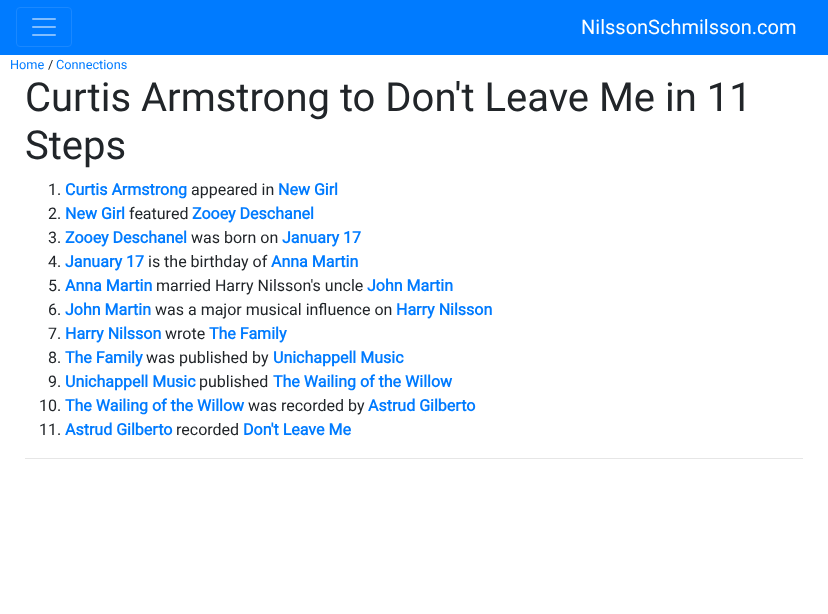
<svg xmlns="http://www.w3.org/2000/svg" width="828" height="614">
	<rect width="100%" height="100%" fill="#FFFFFF" />
	<rect x="0" y="0" width="828" height="55" fill="#007BFF" />
	<rect x="16.5" y="7.5" width="55" height="39" rx="3.5" fill="none" stroke="#1A88FF" />
	<image x="32" y="18" width="24" height="18" href="assets/img1.png" />
	<text x="581" y="34" font-family="Roboto" font-size="20" fill="#FFFFFF">NilssonSchmilsson.com</text>
	<text x="10" y="69" font-family="Roboto" font-size="12.75" fill="#007BFF">Home</text>
	<text x="48" y="69" font-family="Roboto" font-size="12.75" fill="#212529">/</text>
	<text x="56" y="69" font-family="Roboto" font-size="12.75" fill="#007BFF">Connections</text>
	<g font-family="Roboto" font-size="40" fill="#212529">
		<text x="25" y="111">Curtis Armstrong to Don't Leave Me in 11</text>
		<text x="25" y="159">Steps</text>
	</g>
	<text x="48" y="195" font-family="Roboto" font-size="16" fill="#212529">1.</text>
	<text x="65" y="195" font-family="Roboto" font-size="16" font-weight="700" fill="#007BFF">Curtis Armstrong</text>
	<text x="191" y="195" font-family="Roboto" font-size="16" fill="#212529">appeared in</text>
	<text x="278" y="195" font-family="Roboto" font-size="16" font-weight="700" fill="#007BFF">New Girl</text>
	<text x="48" y="219" font-family="Roboto" font-size="16" fill="#212529">2.</text>
	<text x="65" y="219" font-family="Roboto" font-size="16" font-weight="700" fill="#007BFF">New Girl</text>
	<text x="129" y="219" font-family="Roboto" font-size="16" fill="#212529">featured</text>
	<text x="192" y="219" font-family="Roboto" font-size="16" font-weight="700" fill="#007BFF">Zooey Deschanel</text>
	<text x="48" y="243" font-family="Roboto" font-size="16" fill="#212529">3.</text>
	<text x="65" y="243" font-family="Roboto" font-size="16" font-weight="700" fill="#007BFF">Zooey Deschanel</text>
	<text x="191" y="243" font-family="Roboto" font-size="16" fill="#212529">was born on</text>
	<text x="282" y="243" font-family="Roboto" font-size="16" font-weight="700" fill="#007BFF">January 17</text>
	<text x="48" y="267" font-family="Roboto" font-size="16" fill="#212529">4.</text>
	<text x="65" y="267" font-family="Roboto" font-size="16" font-weight="700" fill="#007BFF">January 17</text>
	<text x="148" y="267" font-family="Roboto" font-size="16" fill="#212529">is the birthday of</text>
	<text x="271" y="267" font-family="Roboto" font-size="16" font-weight="700" fill="#007BFF">Anna Martin</text>
	<text x="48" y="291" font-family="Roboto" font-size="16" fill="#212529">5.</text>
	<text x="65" y="291" font-family="Roboto" font-size="16" font-weight="700" fill="#007BFF">Anna Martin</text>
	<text x="156" y="291" font-family="Roboto" font-size="16" fill="#212529">married Harry Nilsson's uncle</text>
	<text x="367" y="291" font-family="Roboto" font-size="16" font-weight="700" fill="#007BFF">John Martin</text>
	<text x="48" y="315" font-family="Roboto" font-size="16" fill="#212529">6.</text>
	<text x="65" y="315" font-family="Roboto" font-size="16" font-weight="700" fill="#007BFF">John Martin</text>
	<text x="155" y="315" font-family="Roboto" font-size="16" fill="#212529">was a major musical influence on</text>
	<text x="396" y="315" font-family="Roboto" font-size="16" font-weight="700" fill="#007BFF">Harry Nilsson</text>
	<text x="48" y="339" font-family="Roboto" font-size="16" fill="#212529">7.</text>
	<text x="65" y="339" font-family="Roboto" font-size="16" font-weight="700" fill="#007BFF">Harry Nilsson</text>
	<text x="165" y="339" font-family="Roboto" font-size="16" fill="#212529">wrote</text>
	<text x="209" y="339" font-family="Roboto" font-size="16" font-weight="700" fill="#007BFF">The Family</text>
	<text x="48" y="363" font-family="Roboto" font-size="16" fill="#212529">8.</text>
	<text x="65" y="363" font-family="Roboto" font-size="16" font-weight="700" fill="#007BFF">The Family</text>
	<text x="146" y="363" font-family="Roboto" font-size="16" fill="#212529">was published by</text>
	<text x="273" y="363" font-family="Roboto" font-size="16" font-weight="700" fill="#007BFF">Unichappell Music</text>
	<text x="48" y="387" font-family="Roboto" font-size="16" fill="#212529">9.</text>
	<text x="65" y="387" font-family="Roboto" font-size="16" font-weight="700" fill="#007BFF">Unichappell Music</text>
	<text x="199" y="387" font-family="Roboto" font-size="16" fill="#212529">published</text>
	<text x="273" y="387" font-family="Roboto" font-size="16" font-weight="700" fill="#007BFF">The Wailing of the Willow</text>
	<text x="39" y="411" font-family="Roboto" font-size="16" fill="#212529">10.</text>
	<text x="65" y="411" font-family="Roboto" font-size="16" font-weight="700" fill="#007BFF">The Wailing of the Willow</text>
	<text x="248" y="411" font-family="Roboto" font-size="16" fill="#212529">was recorded by</text>
	<text x="368" y="411" font-family="Roboto" font-size="16" font-weight="700" fill="#007BFF">Astrud Gilberto</text>
	<text x="39" y="435" font-family="Roboto" font-size="16" fill="#212529">11.</text>
	<text x="65" y="435" font-family="Roboto" font-size="16" font-weight="700" fill="#007BFF">Astrud Gilberto</text>
	<text x="176" y="435" font-family="Roboto" font-size="16" fill="#212529">recorded</text>
	<text x="243" y="435" font-family="Roboto" font-size="16" font-weight="700" fill="#007BFF">Don't Leave Me</text>
	<rect x="25" y="458" width="778" height="1" fill="#E6E6E6" />
</svg>
